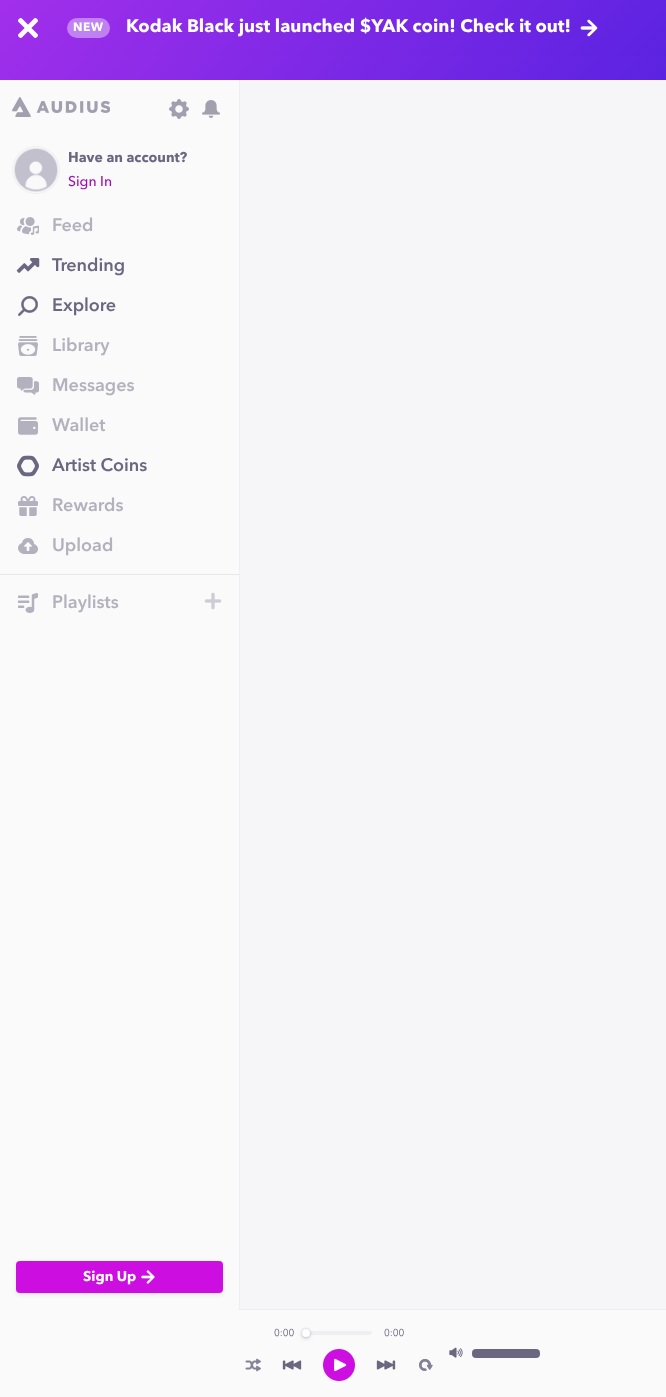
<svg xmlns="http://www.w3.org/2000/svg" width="666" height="1397">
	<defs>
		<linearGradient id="g1" gradientUnits="userSpaceOnUse" x1="514" y1="209" x2="152" y2="-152"><stop offset="0" stop-color="#5B23E1" /><stop offset="1" stop-color="#A22FEB" /></linearGradient>
		<linearGradient id="g2" gradientUnits="userSpaceOnUse" x1="520" y1="226" x2="146" y2="-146"><stop offset="0" stop-color="#5B23E1" /><stop offset="1" stop-color="#A22FEB" /></linearGradient>
	</defs>
	<rect width="100%" height="100%" fill="#F6F5F7" />
	<rect x="0" y="0" width="666" height="56" fill="url(#g1)" />
	<image x="18" y="18" width="20" height="20" href="assets/img1.png" />
	<rect x="67" y="18" width="43" height="20" rx="10" fill="#FFFFFF" fill-opacity="0.4" />
	<text x="73" y="31" font-family="Avenir Next" font-size="12" font-weight="700" letter-spacing="0.5" fill="#FFFFFF">NEW</text>
	<text x="126" y="32" font-family="Avenir Next" font-size="18" font-weight="700" fill="#FFFFFF">Kodak Black just launched $YAK coin! Check it out!</text>
	<image x="580" y="19" width="18" height="18" href="assets/img2.png" />
	<rect x="0" y="56" width="666" height="24" fill="url(#g2)" />
	<rect x="0" y="80" width="239" height="1229" fill="#FAFAFA" />
	<rect x="239" y="80" width="1" height="1229" fill="#EFEFF1" />
	<image x="12" y="97" width="98" height="20" href="assets/img3.png" />
	<image x="169" y="99" width="20" height="20" href="assets/img4.png" />
	<image x="202" y="100" width="18" height="18" href="assets/img5.png" />
	<circle cx="36" cy="170" r="23.5" fill="none" stroke="#EFEFF1" />
	<circle cx="36" cy="170" r="23" fill="#F7F7F8" />
	<image x="14" y="148" width="44" height="44" href="assets/img6.png" />
	<text x="68" y="162" font-family="Avenir Next" font-size="14" font-weight="700" fill="#6C6780">Have an account?</text>
	<text x="68" y="186" font-family="Avenir Next" font-size="14" font-weight="500" fill="#A30CB3">Sign In</text>
	<image x="17" y="217" width="22" height="18" href="assets/img7.png" />
	<text x="52" y="231" font-family="Avenir Next" font-size="18" font-weight="600" fill="#B3B1BD">Feed</text>
	<image x="16" y="258" width="24" height="15" href="assets/img8.png" />
	<text x="52" y="271" font-family="Avenir Next" font-size="18" font-weight="600" fill="#6C6780">Trending</text>
	<image x="18" y="296" width="20" height="20" href="assets/img9.png" />
	<text x="52" y="311" font-family="Avenir Next" font-size="18" font-weight="600" fill="#6C6780">Explore</text>
	<image x="18" y="336" width="20" height="20" href="assets/img10.png" />
	<text x="52" y="351" font-family="Avenir Next" font-size="18" font-weight="600" fill="#B3B1BD">Library</text>
	<image x="17" y="377" width="22" height="18" href="assets/img11.png" />
	<text x="52" y="391" font-family="Avenir Next" font-size="18" font-weight="600" fill="#B3B1BD">Messages</text>
	<image x="18" y="417" width="20" height="18" href="assets/img12.png" />
	<text x="52" y="431" font-family="Avenir Next" font-size="18" font-weight="600" fill="#B3B1BD">Wallet</text>
	<image x="17" y="455" width="22" height="22" href="assets/img13.png" />
	<text x="52" y="471" font-family="Avenir Next" font-size="18" font-weight="600" fill="#6C6780">Artist Coins</text>
	<image x="18" y="496" width="20" height="20" href="assets/img14.png" />
	<text x="52" y="511" font-family="Avenir Next" font-size="18" font-weight="600" fill="#B3B1BD">Rewards</text>
	<image x="18" y="538" width="20" height="16" href="assets/img15.png" />
	<text x="52" y="551" font-family="Avenir Next" font-size="18" font-weight="600" fill="#B3B1BD">Upload</text>
	<rect x="0" y="574" width="239" height="1" fill="#E7E7EA" />
	<image x="18" y="593" width="20" height="20" href="assets/img16.png" />
	<text x="52" y="608" font-family="Avenir Next" font-size="18" font-weight="600" fill="#B3B1BD">Playlists</text>
	<image x="204" y="592" width="18" height="18" href="assets/img17.png" />
	<rect x="16" y="1263" width="207" height="32" rx="4" fill="#000000" fill-opacity="0.08" filter="blur(2px)" />
	<rect x="16" y="1261" width="207" height="32" rx="4" fill="#CC0FE0" />
	<text x="83" y="1281" font-family="Avenir Next" font-size="14" font-weight="700" fill="#FFFFFF">Sign Up</text>
	<image x="141" y="1270" width="14" height="14" href="assets/img18.png" />
	<rect x="0" y="1309" width="666" height="88" fill="#FAFAFA" />
	<rect x="239" y="1309" width="427" height="1" fill="#EDECEF" />
	<text x="274" y="1336" font-family="Avenir Next" font-size="10" fill="#6C6780">0:00</text>
	<rect x="306" y="1331" width="66" height="4" rx="2" fill="#EFEFF1" />
	<rect x="303" y="1332" width="6" height="6" rx="3" fill="#858199" fill-opacity="0.5" filter="blur(2.5px)" />
	<rect x="302" y="1329" width="8" height="8" rx="4" fill="#858199" fill-opacity="0.5" filter="blur(1px)" />
	<circle cx="306" cy="1333" r="4" fill="#FFFFFF" />
	<text x="384" y="1336" font-family="Avenir Next" font-size="10" fill="#6C6780">0:00</text>
	<image x="245" y="1358" width="16" height="14" href="assets/img19.png" />
	<image x="282" y="1360" width="20" height="10" href="assets/img20.png" />
	<image x="323" y="1349" width="32" height="32" href="assets/img21.png" />
	<image x="376" y="1360" width="20" height="10" href="assets/img22.png" />
	<image x="419" y="1359" width="14" height="12" href="assets/img23.png" />
	<image x="449" y="1347" width="14" height="11" href="assets/img24.png" />
	<rect x="472" y="1349" width="68" height="9" rx="4" fill="#6C6780" />
</svg>
